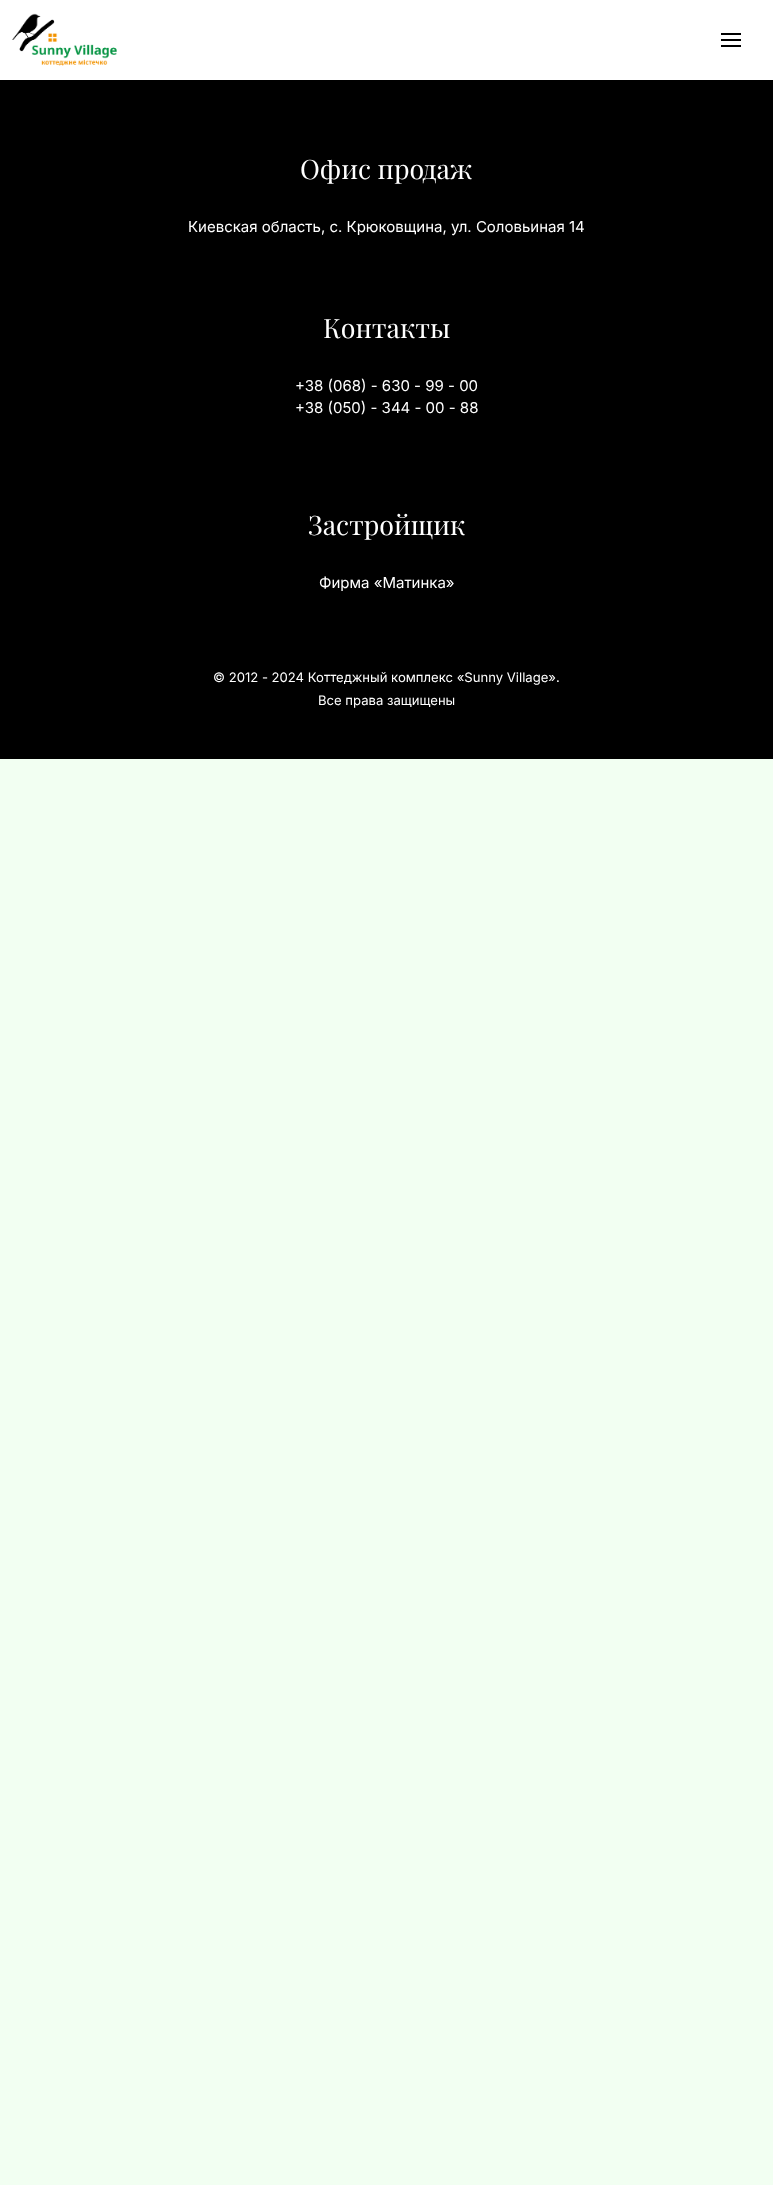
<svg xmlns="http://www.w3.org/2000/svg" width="773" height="2185">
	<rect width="100%" height="100%" fill="#F2FFF2" />
	<rect x="0" y="0" width="773" height="80" fill="#FFFFFF" />
	<image x="12" y="13" width="105" height="53" href="assets/img1.png" />
	<rect x="721" y="39" width="20" height="2" fill="#000000" />
	<rect x="721" y="33" width="20" height="2" fill="#000000" />
	<rect x="721" y="45" width="20" height="2" fill="#000000" />
	<rect x="0" y="80" width="773" height="679" fill="#000000" />
	<text x="300" y="179" font-family="Playfair Display" font-size="26.75" fill="#FFFFFF">Офис продаж</text>
	<text x="188" y="232" font-family="Inter" font-size="15" fill="#FFFFFF">Киевская область, с. Крюковщина, ул. Соловьиная 14</text>
	<text x="323" y="338" font-family="Playfair Display" font-size="26.75" fill="#FFFFFF">Контакты</text>
	<g font-family="Inter" font-size="15" fill="#FFFFFF">
		<text x="295" y="391">+38 (068) - 630 - 99 - 00</text>
		<text x="295" y="413">+38 (050) - 344 - 00 - 88</text>
	</g>
	<text x="308" y="535" font-family="Playfair Display" font-size="26.75" fill="#FFFFFF">Застройщик</text>
	<text x="319" y="588" font-family="Inter" font-size="15" fill="#FFFFFF">Фирма «Матинка»</text>
	<g font-family="Inter" font-size="13.1" fill="#FFFFFF">
		<text x="213" y="682">© 2012 - 2024 Коттеджный комплекс «Sunny Village».</text>
		<text x="318" y="705">Все права защищены</text>
	</g>
</svg>
